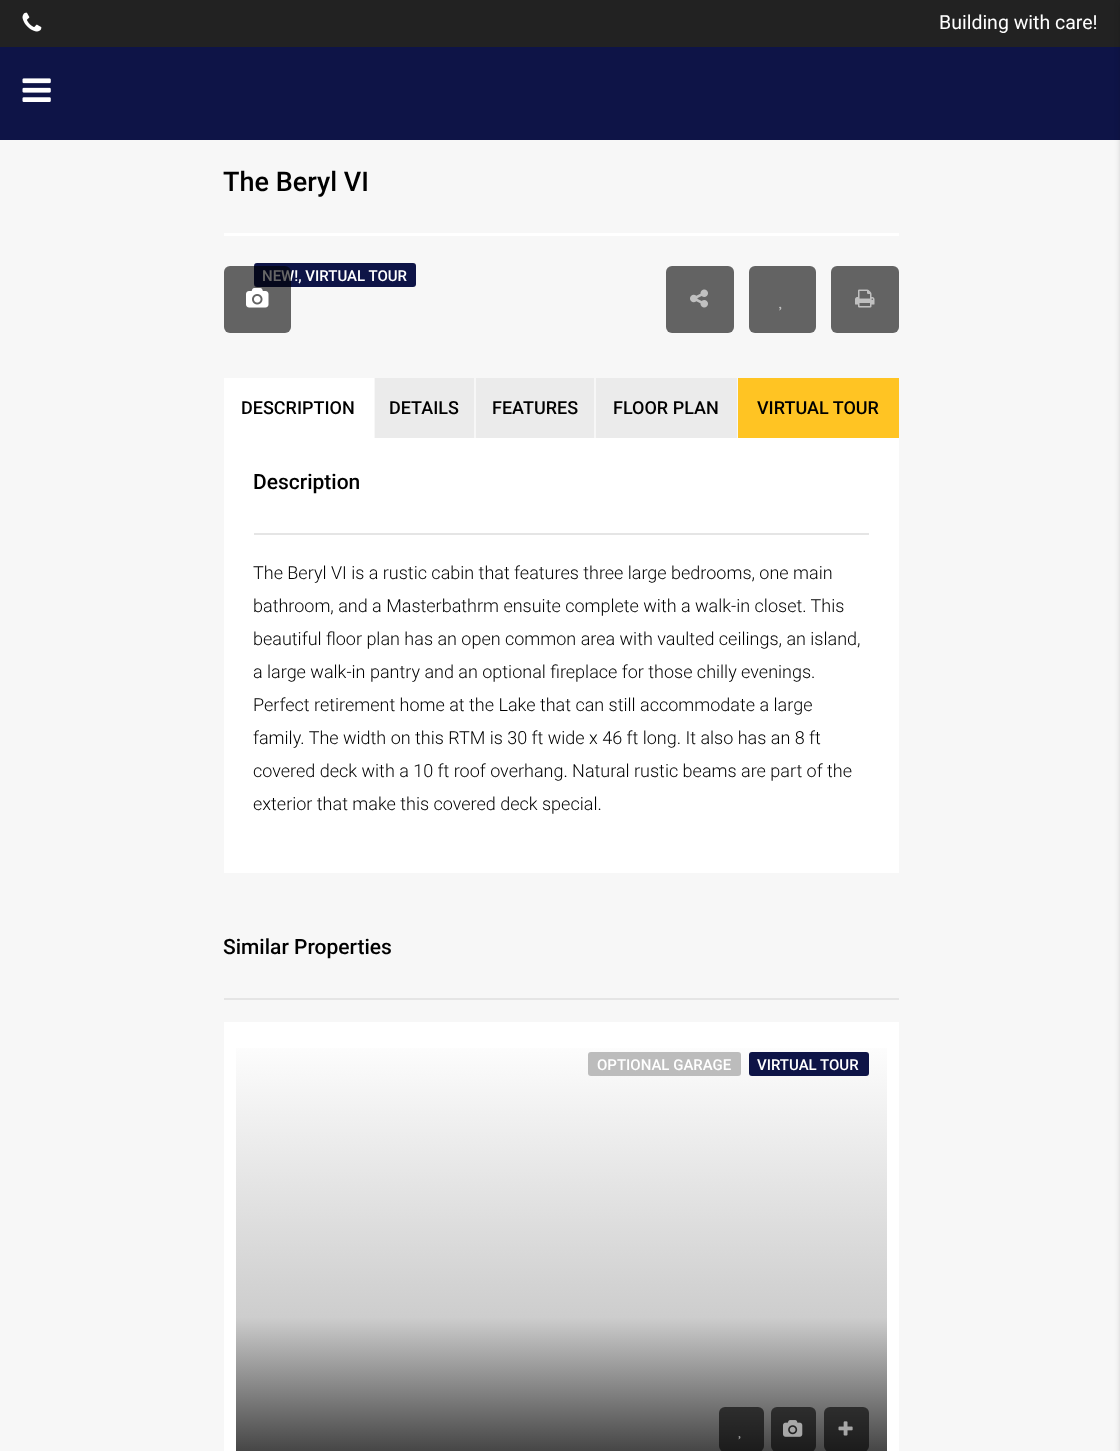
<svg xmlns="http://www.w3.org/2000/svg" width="1120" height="1451">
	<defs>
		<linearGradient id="g1" gradientUnits="userSpaceOnUse" x1="561" y1="1034" x2="561" y2="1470"><stop offset="0" stop-color="#FFFFFF" /><stop offset="0.65" stop-color="#CDCDCD" /><stop offset="1" stop-color="#333333" /></linearGradient>
	</defs>
	<rect width="100%" height="100%" fill="#F7F7F7" />
	<rect x="0" y="0" width="1120" height="47" fill="#222222" />
	<image x="22" y="12" width="20" height="20" href="assets/img1.png" />
	<text x="939" y="29" font-family="Roboto" font-size="19.5" fill="#FFFFFF">Building with care!</text>
	<rect x="0" y="47" width="1120" height="93" fill="#0E1447" />
	<image x="22" y="78" width="29" height="24" href="assets/img2.png" />
	<text x="223" y="191" font-family="Roboto" font-size="27" font-weight="500" fill="#000000">The Beryl VI</text>
	<rect x="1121" y="3" width="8" height="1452" fill="#000000" fill-opacity="0.2" filter="blur(3px)" />
	<rect x="254" y="263" width="162" height="24" rx="3" fill="#0E1447" />
	<text x="262" y="281" font-family="Roboto" font-size="15" font-weight="500" fill="#FFFFFF">NEW!, VIRTUAL TOUR</text>
	<rect x="224" y="266" width="67" height="67" rx="6" fill="#000000" fill-opacity="0.6" />
	<image x="246" y="288" width="23" height="20" href="assets/img3.png" />
	<rect x="666" y="266" width="68" height="67" rx="6" fill="#636363" />
	<image x="690" y="289" width="18" height="19" href="assets/img4.png" />
	<rect x="749" y="266" width="67" height="67" rx="6" fill="#636363" />
	<image x="779" y="306" width="3" height="5" href="assets/img5.png" />
	<rect x="831" y="266" width="68" height="67" rx="6" fill="#636363" />
	<image x="855" y="289" width="20" height="19" href="assets/img6.png" />
	<rect x="224" y="233" width="675" height="3" fill="#FFFFFF" />
	<rect x="224" y="378" width="150" height="60" fill="#FFFFFF" />
	<text x="241" y="414" font-family="Roboto" font-size="18" font-weight="500" fill="#000000">DESCRIPTION</text>
	<rect x="375" y="378" width="99" height="60" fill="#EBEBEB" />
	<text x="389" y="414" font-family="Roboto" font-size="18" font-weight="500" fill="#000000">DETAILS</text>
	<rect x="476" y="378" width="118" height="60" fill="#EBEBEB" />
	<text x="492" y="414" font-family="Roboto" font-size="18" font-weight="500" fill="#000000">FEATURES</text>
	<rect x="596" y="378" width="141" height="60" fill="#EBEBEB" />
	<text x="613" y="414" font-family="Roboto" font-size="18" font-weight="500" fill="#000000">FLOOR PLAN</text>
	<rect x="738" y="378" width="161" height="60" fill="#FFC423" />
	<text x="757" y="414" font-family="Roboto" font-size="18" font-weight="500" fill="#000000">VIRTUAL TOUR</text>
	<rect x="224" y="438" width="675" height="435" fill="#FFFFFF" />
	<rect x="254" y="533" width="615" height="2" fill="#E5E5E5" />
	<text x="253" y="489" font-family="Roboto" font-size="21" font-weight="500" fill="#000000">Description</text>
	<g font-family="Roboto" font-size="18" font-weight="300" fill="#000000">
		<text x="253" y="579">The Beryl VI is a rustic cabin that features three large bedrooms, one main</text>
		<text x="253" y="612">bathroom, and a Masterbathrm ensuite complete with a walk-in closet. This</text>
		<text x="253" y="645">beautiful floor plan has an open common area with vaulted ceilings, an island,</text>
		<text x="253" y="678">a large walk-in pantry and an optional fireplace for those chilly evenings.</text>
		<text x="253" y="711">Perfect retirement home at the Lake that can still accommodate a large</text>
		<text x="253" y="744">family. The width on this RTM is 30 ft wide x 46 ft long. It also has an 8 ft</text>
		<text x="253" y="777">covered deck with a 10 ft roof overhang. Natural rustic beams are part of the</text>
		<text x="253" y="810">exterior that make this covered deck special.</text>
	</g>
	<rect x="224" y="998" width="675" height="2" fill="#E5E5E5" />
	<text x="223" y="954" font-family="Roboto" font-size="21" font-weight="500" fill="#000000">Similar Properties</text>
	<rect x="224" y="1022" width="675" height="429" fill="#FFFFFF" />
	<rect x="236" y="1048" width="651" height="403" fill="url(#g1)" />
	<rect x="588" y="1052" width="153" height="24" rx="3" fill="#BCBCBC" />
	<text x="597" y="1070" font-family="Roboto" font-size="15" font-weight="500" fill="#FFFFFF">OPTIONAL GARAGE</text>
	<rect x="749" y="1052" width="120" height="24" rx="3" fill="#0E1447" />
	<text x="757" y="1070" font-family="Roboto" font-size="15" font-weight="500" fill="#FFFFFF">VIRTUAL TOUR</text>
	<rect x="719" y="1407" width="45" height="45" rx="6" fill="#000000" fill-opacity="0.6" />
	<image x="738" y="1436" width="3" height="4" href="assets/img7.png" />
	<rect x="771" y="1407" width="45" height="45" rx="6" fill="#000000" fill-opacity="0.6" />
	<image x="783" y="1420" width="20" height="17" href="assets/img8.png" />
	<rect x="824" y="1407" width="45" height="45" rx="6" fill="#000000" fill-opacity="0.6" />
	<image x="838" y="1421" width="15" height="15" href="assets/img9.png" />
</svg>
